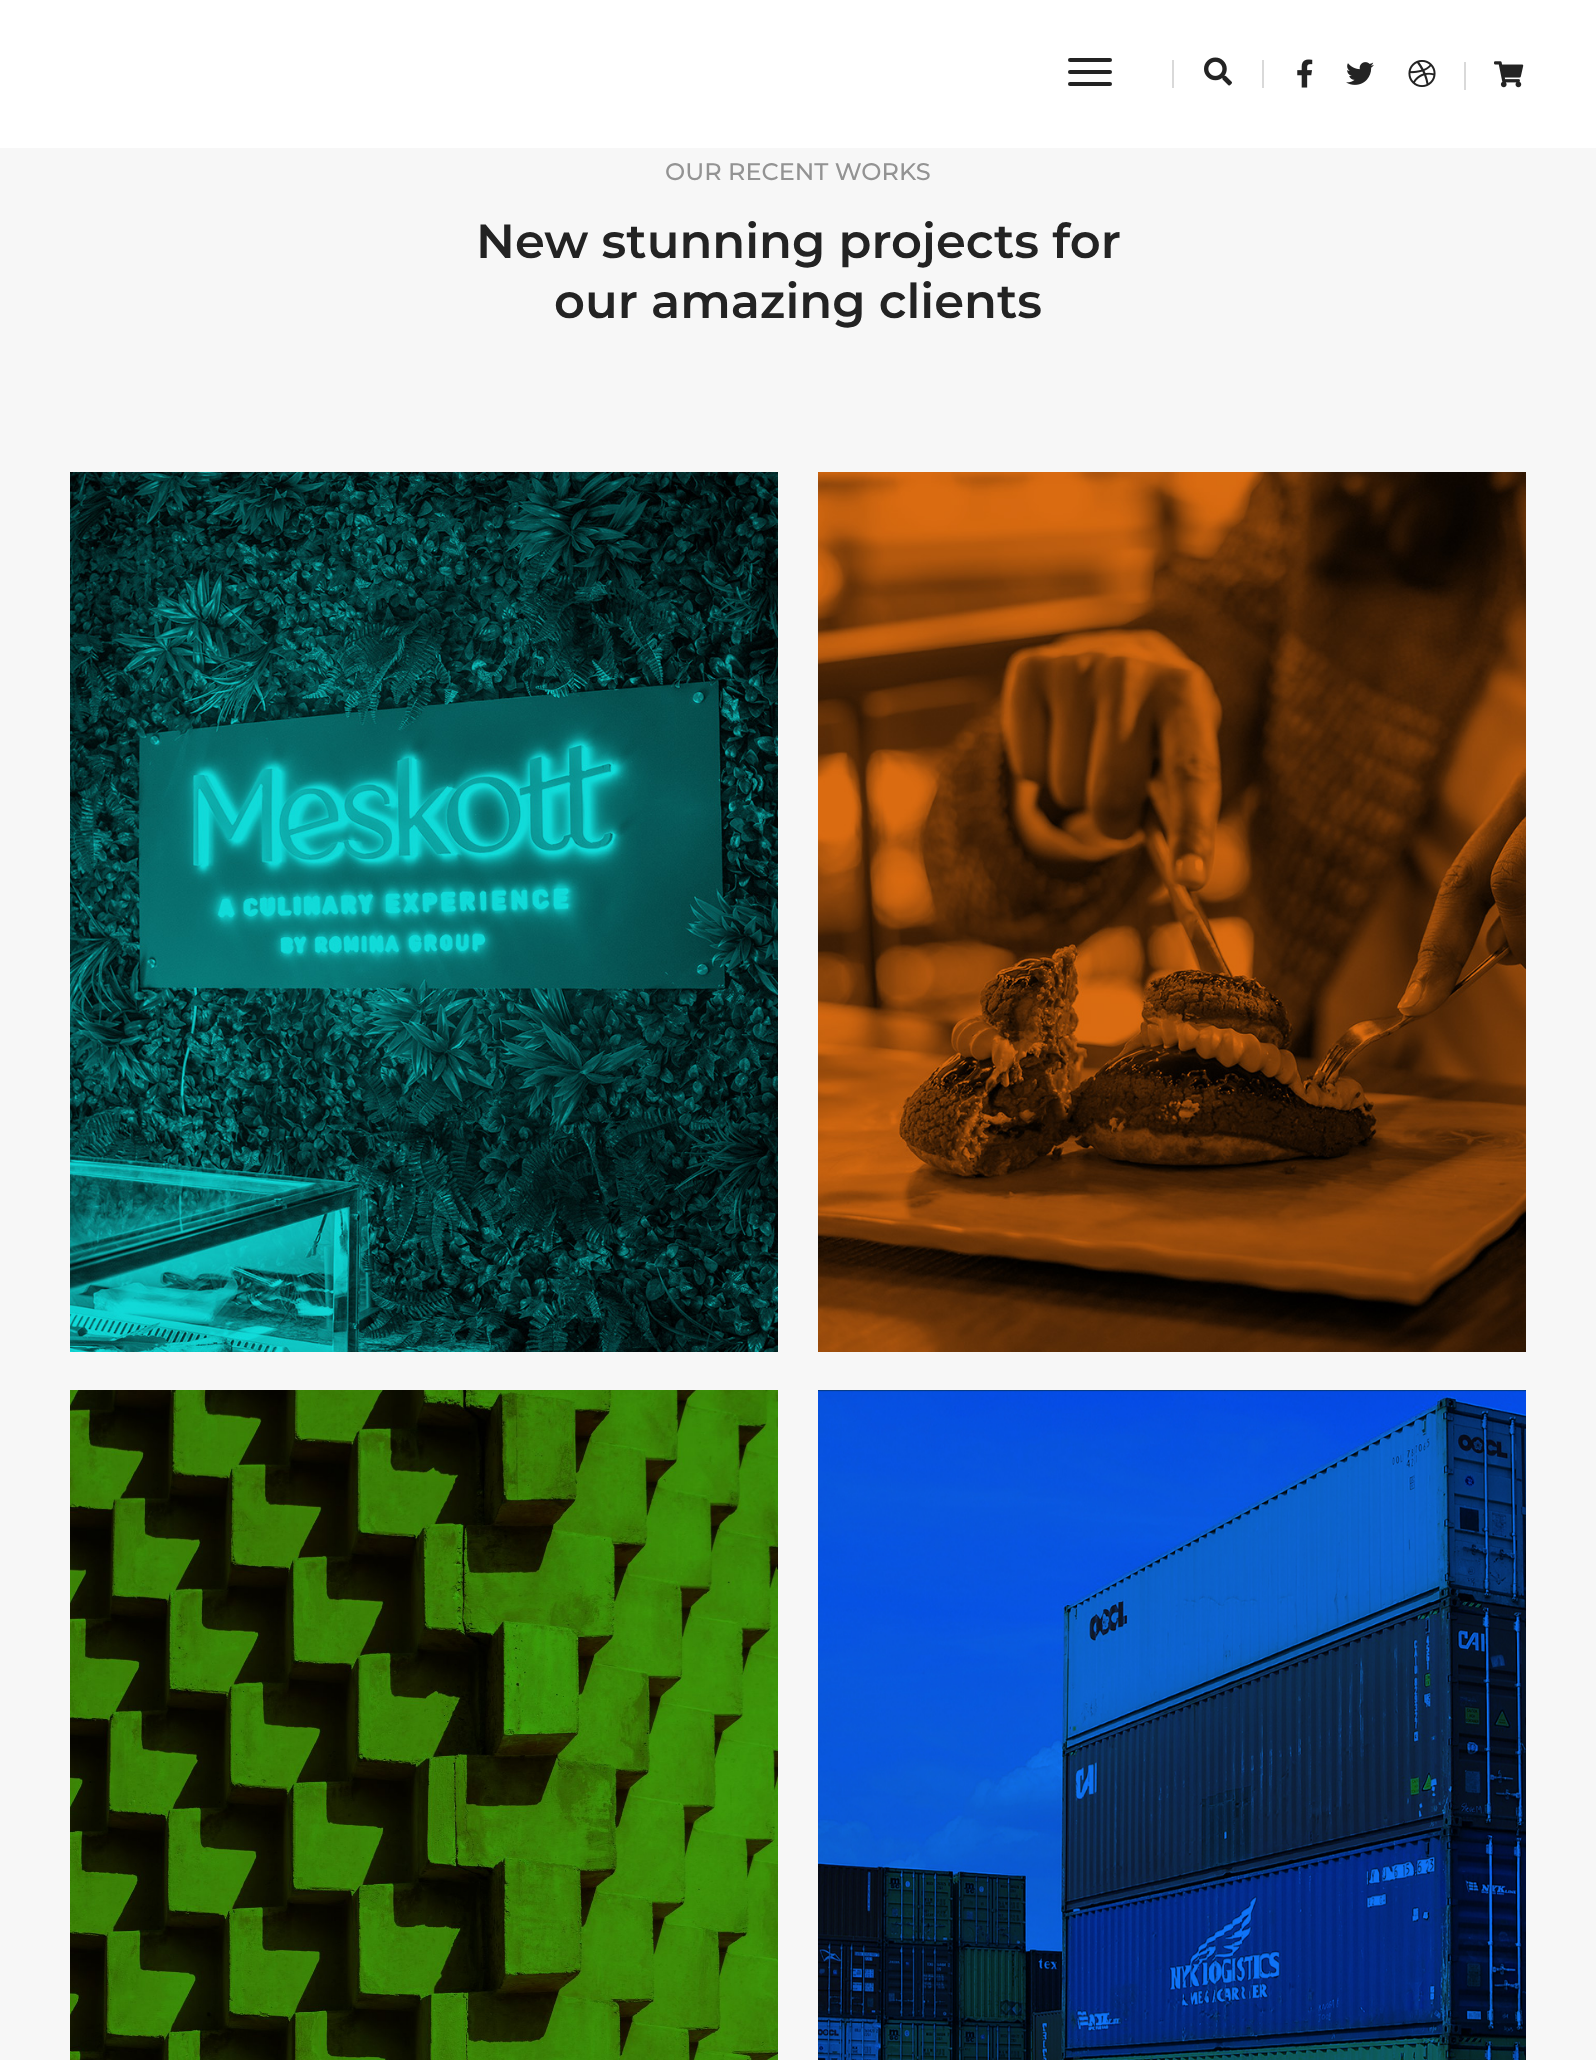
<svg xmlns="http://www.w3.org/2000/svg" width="1596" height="2060">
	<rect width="100%" height="100%" fill="#F7F7F7" />
	<rect x="0" y="0" width="1596" height="148" fill="#FFFFFF" />
	<rect x="1068" y="58" width="44" height="4" rx="2" fill="#232323" />
	<rect x="1068" y="70" width="44" height="4" rx="2" fill="#232323" />
	<rect x="1068" y="82" width="44" height="4" rx="2" fill="#232323" />
	<rect x="1172" y="60" width="2" height="28" fill="#D9D9D9" />
	<image x="1204" y="57" width="28" height="29" href="assets/img1.png" />
	<rect x="1262" y="60" width="2" height="28" fill="#D9D9D9" />
	<image x="1297" y="59" width="16" height="29" href="assets/img2.png" />
	<image x="1346" y="62" width="28" height="23" href="assets/img3.png" />
	<image x="1408" y="60" width="28" height="27" href="assets/img4.png" />
	<rect x="1464" y="62" width="2" height="28" fill="#D9D9D9" />
	<image x="1494" y="61" width="30" height="27" href="assets/img5.png" />
	<text x="665" y="180" font-family="Montserrat" font-size="24" font-weight="500" fill="#939393">OUR RECENT WORKS</text>
	<g font-family="Montserrat" font-size="48" font-weight="600" fill="#232323">
		<text x="476" y="258">New stunning projects for</text>
		<text x="554" y="318">our amazing clients</text>
	</g>
	<image x="70" y="472" width="708" height="880" href="assets/img6.png" />
	<image x="818" y="472" width="708" height="880" href="assets/img7.png" />
	<image x="70" y="1390" width="708" height="670" href="assets/img8.png" />
	<image x="818" y="1390" width="708" height="670" href="assets/img9.png" />
</svg>
